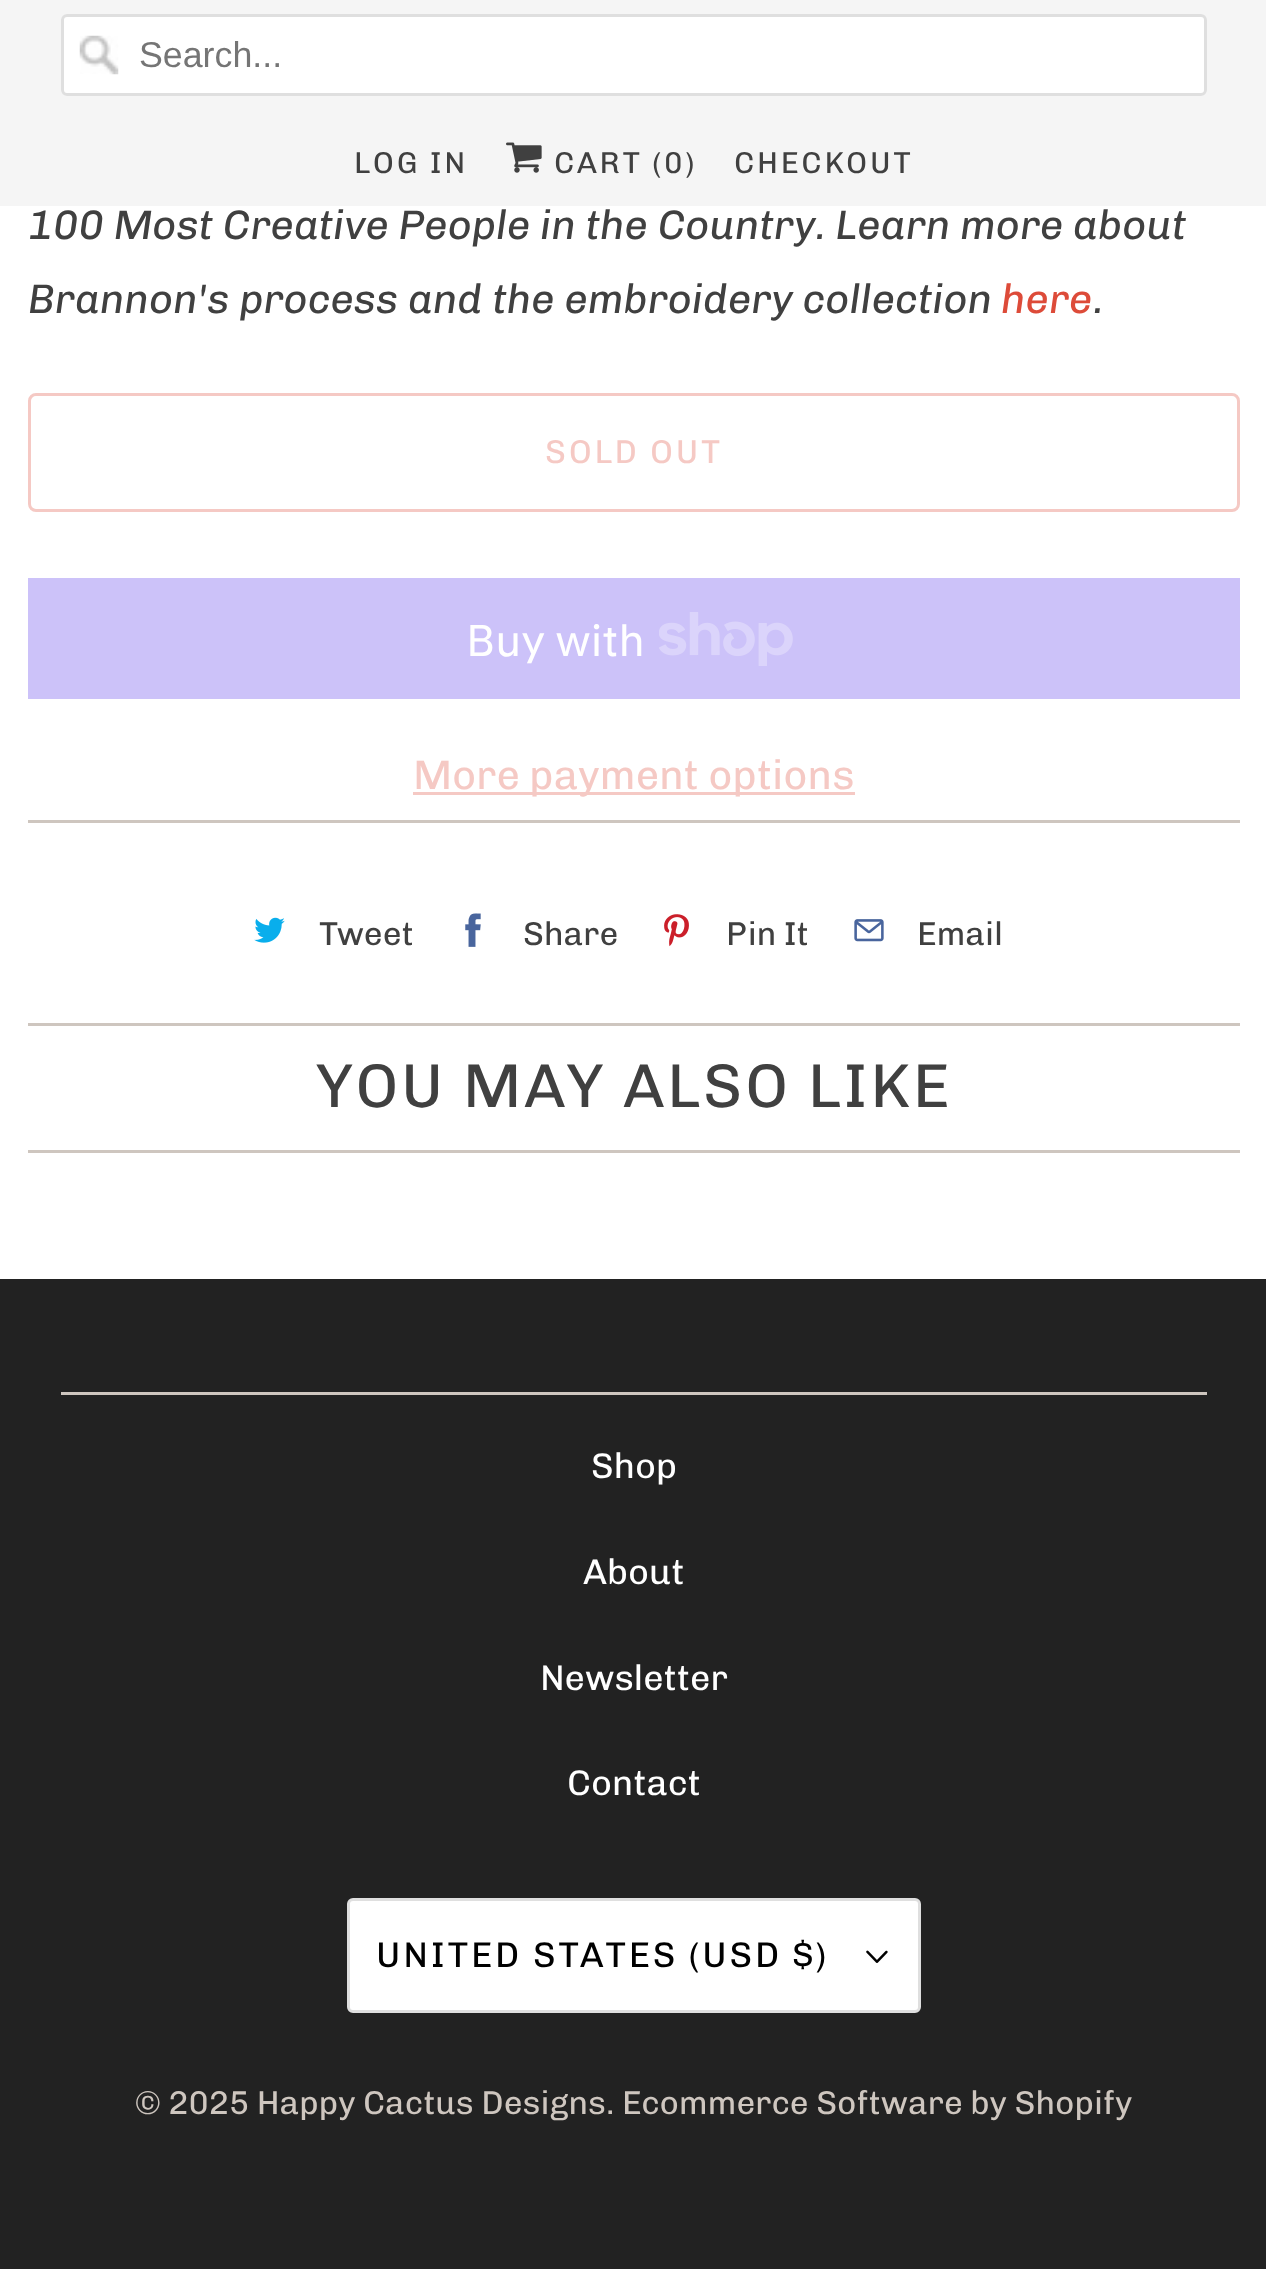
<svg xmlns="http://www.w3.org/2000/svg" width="1266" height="2269">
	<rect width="100%" height="100%" fill="#FFFFFF" />
	<rect x="0" y="0" width="1266" height="206" fill="#F5F5F5" />
	<rect x="61" y="14" width="1146" height="82" rx="6" fill="#FFFFFF" />
	<image x="79" y="35" width="40" height="40" href="assets/img1.png" />
	<rect x="62.5" y="15.5" width="1143" height="79" rx="4.5" fill="none" stroke="#DFDFDF" stroke-width="3" />
	<text x="139" y="67" font-family="Liberation Sans" font-size="35.75" fill="#757575">Search...</text>
	<text x="354" y="173" font-family="Chivo" font-size="30.25" letter-spacing="2.75" fill="#404040">LOG IN</text>
	<image x="506" y="142" width="36" height="31" href="assets/img2.png" />
	<g font-family="Chivo" font-size="30.25" letter-spacing="2.75" fill="#404040">
		<text x="554" y="173">CART (0)</text>
		<text x="734" y="173">CHECKOUT</text>
	</g>
	<g font-family="Chivo" font-size="41.25" font-style="italic" fill="#404040">
		<text x="28" y="239">100 Most Creative People in the Country. Learn more about</text>
		<text x="28" y="313">Brannon's process and the embroidery collection</text>
	</g>
	<text x="1001" y="313" font-family="Chivo" font-size="41.25" font-style="italic" fill="#DD4B39">here</text>
	<text x="1093" y="313" font-family="Chivo" font-size="41.25" font-style="italic" fill="#404040">.</text>
	<rect x="29.5" y="394.5" width="1209" height="116" rx="6.5" fill="none" stroke="#F5C9C4" stroke-width="3" />
	<text x="545" y="463" font-family="Chivo" font-size="33" letter-spacing="2.75" fill="#F5C9C4">SOLD OUT</text>
	<rect x="28" y="578" width="1212" height="121" fill="#CCC2F9" />
	<text x="466" y="656" font-family="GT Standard" font-size="44" fill="#FFFFFF">Buy with</text>
	<image x="659" y="612" width="134" height="54" href="assets/img3.png" />
	<rect x="413" y="792" width="442" height="3" fill="#F5C9C4" />
	<text x="413" y="789" font-family="Chivo" font-size="41.25" fill="#F5C9C4">More payment options</text>
	<rect x="28" y="820" width="1212" height="3" fill="#CEC6BF" />
	<image x="254" y="917" width="31" height="26" href="assets/img4.png" />
	<text x="319" y="945" font-family="Chivo" font-size="33" fill="#404040">Tweet</text>
	<image x="465" y="913" width="16" height="34" href="assets/img5.png" />
	<text x="523" y="945" font-family="Chivo" font-size="33" fill="#404040">Share</text>
	<image x="664" y="914" width="25" height="33" href="assets/img6.png" />
	<text x="726" y="945" font-family="Chivo" font-size="33" fill="#404040">Pin It</text>
	<image x="854" y="919" width="30" height="23" href="assets/img7.png" />
	<text x="917" y="945" font-family="Chivo" font-size="33" fill="#404040">Email</text>
	<rect x="28" y="1023" width="1212" height="3" fill="#CEC6BF" />
	<rect x="28" y="1150" width="1212" height="3" fill="#CEC6BF" />
	<text x="316" y="1107" font-family="Chivo" font-size="61.9" letter-spacing="2.75" fill="#404040">YOU MAY ALSO LIKE</text>
	<rect x="0" y="1279" width="1266" height="990" fill="#222222" />
	<rect x="61" y="1392" width="1146" height="3" fill="#CEC6BF" />
	<g font-family="Chivo" font-size="35.75" fill="#FFFFFF">
		<text x="591" y="1478">Shop</text>
		<text x="583" y="1584">About</text>
		<text x="540" y="1690">Newsletter</text>
		<text x="567" y="1795">Contact</text>
	</g>
	<rect x="348.5" y="1899.5" width="571" height="112" rx="4.5" fill="#FFFFFF" stroke="#DFDFDF" stroke-width="3" />
	<text x="376" y="1967" font-family="Chivo" font-size="35.75" letter-spacing="2.75" fill="#000000">UNITED STATES (USD $)</text>
	<image x="866" y="1950" width="22" height="13" href="assets/img8.png" />
	<text x="135" y="2114" font-family="Chivo" font-size="33" fill="#CEC6BF">© 2025 Happy Cactus Designs. Ecommerce Software by Shopify</text>
</svg>
